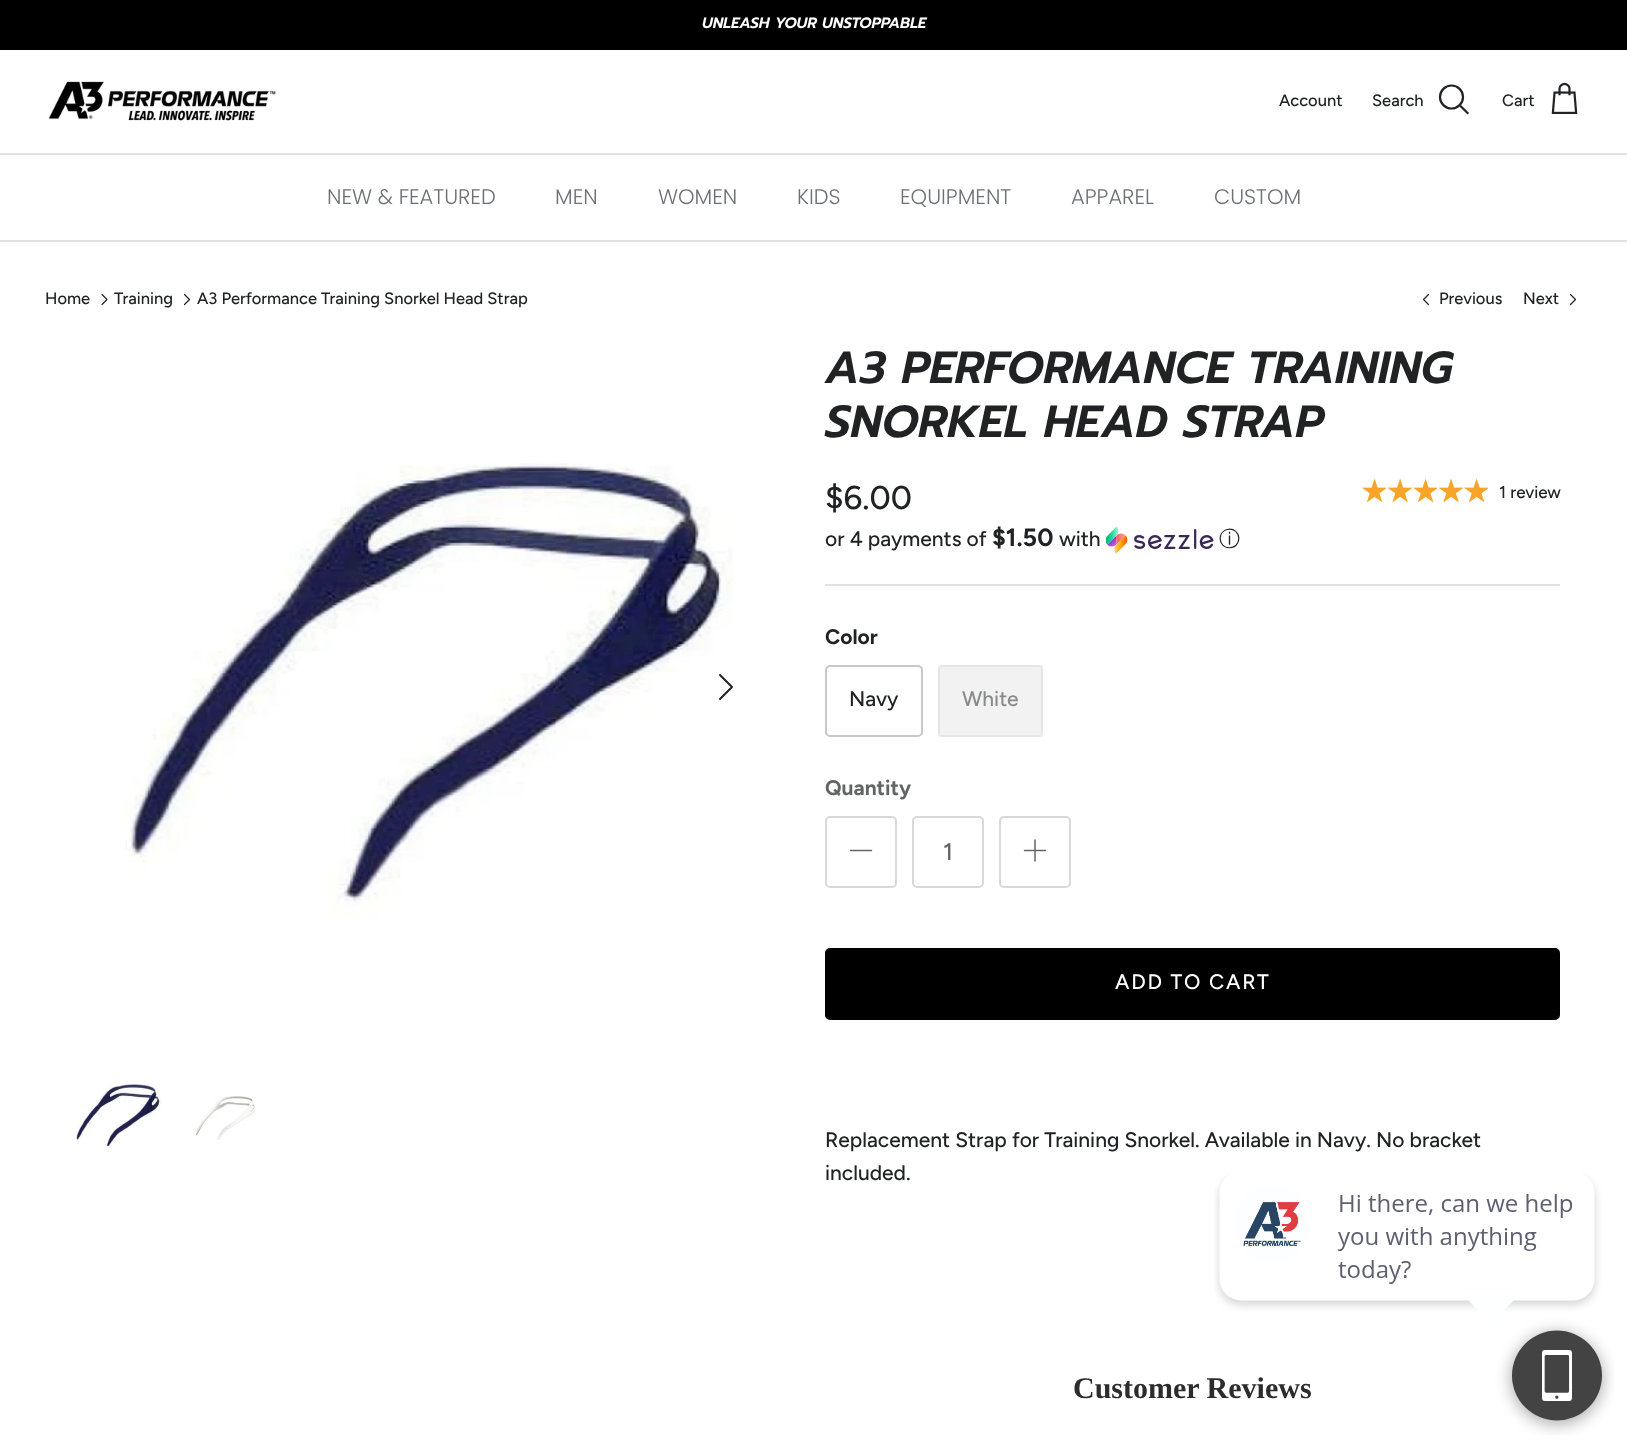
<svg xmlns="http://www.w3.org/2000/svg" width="1627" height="1446">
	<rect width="100%" height="100%" fill="#FFFFFF" />
	<rect x="0" y="0" width="1627" height="50" fill="#000000" />
	<text x="702" y="28" font-family="Prompt" font-size="15" font-weight="600" font-style="italic" fill="#FFFFFF">UNLEASH YOUR UNSTOPPABLE</text>
	<rect x="0" y="153" width="1627" height="2" fill="#E2E2E2" />
	<image x="48" y="81" width="228" height="40" href="assets/img1.png" />
	<g font-family="Figtree" font-size="16.5" font-weight="500" fill="#202223">
		<text x="1279" y="106">Account</text>
		<text x="1372" y="106">Search</text>
	</g>
	<circle cx="1451.5" cy="97" r="11.5" fill="none" stroke="#202223" stroke-width="2.2" />
	<path d="M1461 106.5L1467.5 113" fill="none" stroke="#202223" stroke-width="2.2" stroke-linecap="square" />
	<text x="1502" y="106" font-family="Figtree" font-size="16.5" font-weight="500" fill="#202223">Cart</text>
	<image x="1551" y="82" width="27" height="32" href="assets/img2.png" />
	<rect x="0" y="240" width="1627" height="2" fill="#E2E2E2" />
	<g font-family="Poppins" font-size="21" font-weight="300" fill="#6D7175">
		<text x="327" y="204">NEW &amp; FEATURED</text>
		<text x="555" y="204">MEN</text>
		<text x="658" y="204">WOMEN</text>
		<text x="797" y="204">KIDS</text>
		<text x="900" y="204">EQUIPMENT</text>
		<text x="1071" y="204">APPAREL</text>
		<text x="1214" y="204">CUSTOM</text>
	</g>
	<text x="45" y="304" font-family="Figtree" font-size="16.5" font-weight="500" fill="#202223">Home</text>
	<path d="M102 304.5L107 299.5L102 294.5" fill="none" stroke="#202223" stroke-width="1.2" stroke-linecap="round" stroke-linejoin="round" />
	<text x="114" y="304" font-family="Figtree" font-size="16.5" font-weight="500" fill="#202223">Training</text>
	<path d="M184.5 304.5L189.5 299.5L184.5 294.5" fill="none" stroke="#202223" stroke-width="1.2" stroke-linecap="round" stroke-linejoin="round" />
	<text x="197" y="304" font-family="Figtree" font-size="16.5" font-weight="500" fill="#202223">A3 Performance Training Snorkel Head Strap</text>
	<path d="M1428.5 304.5L1423.5 299.5L1428.5 294.5" fill="none" stroke="#202223" stroke-width="1.2" stroke-linecap="round" stroke-linejoin="round" />
	<g font-family="Figtree" font-size="16.5" font-weight="500" fill="#202223">
		<text x="1439" y="304">Previous</text>
		<text x="1523" y="304">Next</text>
	</g>
	<path d="M1570.5 304.5L1575.5 299.5L1570.5 294.5" fill="none" stroke="#202223" stroke-width="1.2" stroke-linecap="round" stroke-linejoin="round" />
	<image x="122" y="463" width="611" height="455" href="assets/img3.png" />
	<path d="M720 699L732 687L720 675" fill="none" stroke="#202223" stroke-width="2" stroke-linecap="round" stroke-linejoin="round" />
	<image x="76" y="1084" width="85" height="64" href="assets/img4.png" />
	<image x="196" y="1095" width="60" height="45" href="assets/img5.png" />
	<g font-family="Prompt" font-size="45" font-weight="600" font-style="italic" fill="#202223">
		<text x="825" y="383">A3 PERFORMANCE TRAINING</text>
		<text x="825" y="437">SNORKEL HEAD STRAP</text>
	</g>
	<text x="825" y="509" font-family="Figtree" font-size="33" font-weight="500" fill="#202223">$6.00</text>
	<text x="825" y="546" font-family="Figtree" font-size="21" font-weight="500" fill="#202223">or 4 payments of</text>
	<text x="992" y="546" font-family="Figtree" font-size="25" font-weight="700" fill="#202223">$1.50</text>
	<text x="1059" y="546" font-family="Figtree" font-size="21" font-weight="500" fill="#202223">with</text>
	<image x="1106" y="527" width="108" height="27" href="assets/img6.png" />
	<text x="1219" y="546" font-family="WenQuanYi Zen Hei" font-size="21" font-weight="500" fill="#202223">ⓘ</text>
	<image x="1362" y="479" width="24" height="23" href="assets/img7.png" />
	<image x="1388" y="479" width="24" height="23" href="assets/img8.png" />
	<image x="1413" y="479" width="24" height="23" href="assets/img7.png" />
	<image x="1439" y="479" width="24" height="23" href="assets/img8.png" />
	<image x="1464" y="479" width="24" height="23" href="assets/img7.png" />
	<image x="1362" y="479" width="24" height="24" href="assets/img9.png" />
	<image x="1388" y="479" width="24" height="24" href="assets/img10.png" />
	<image x="1413" y="479" width="24" height="24" href="assets/img9.png" />
	<image x="1439" y="479" width="24" height="24" href="assets/img10.png" />
	<image x="1464" y="479" width="24" height="24" href="assets/img9.png" />
	<text x="1499" y="498" font-family="Figtree" font-size="17" font-weight="500" fill="#202223">1 review</text>
	<rect x="825" y="584" width="735" height="2" fill="#E2E2E2" />
	<text x="825" y="644" font-family="Figtree" font-size="21" font-weight="700" fill="#202223">Color</text>
	<rect x="826" y="666" width="96" height="70" rx="4" fill="none" stroke="#C7C8C8" stroke-width="2" />
	<text x="849" y="706" font-family="Figtree" font-size="21" font-weight="500" fill="#202223">Navy</text>
	<rect x="938" y="665" width="105" height="72" rx="5" fill="#F2F2F2" />
	<rect x="939" y="666" width="103" height="70" fill="none" stroke="#000000" stroke-opacity="0.05" stroke-width="2" />
	<text x="962" y="706" font-family="Figtree" font-size="21" font-weight="500" fill="#898A8B">White</text>
	<text x="825" y="795" font-family="Figtree" font-size="21" font-weight="700" fill="#636465">Quantity</text>
	<rect x="826" y="817" width="70" height="70" rx="4" fill="none" stroke="#D8D9D9" stroke-width="2" />
	<path d="M850.5 850.5H871.5" fill="none" stroke="#636465" stroke-width="1.5" stroke-linecap="round" stroke-linejoin="round" />
	<rect x="913" y="817" width="70" height="70" rx="4" fill="none" stroke="#D8D9D9" stroke-width="2" />
	<text x="943" y="860" font-family="Figtree" font-size="24" font-weight="500" fill="#636465">1</text>
	<rect x="1000" y="817" width="70" height="70" rx="4" fill="none" stroke="#D8D9D9" stroke-width="2" />
	<path d="M1035 840V861M1024.5 850.5H1045.5" fill="none" stroke="#636465" stroke-width="1.5" stroke-linecap="round" stroke-linejoin="round" />
	<rect x="826" y="949" width="733" height="70" rx="4" fill="#000000" stroke="#000000" stroke-width="2" />
	<text x="1115" y="989" font-family="Figtree" font-size="21" font-weight="500" letter-spacing="1.75" fill="#FFFFFF">ADD TO CART</text>
	<g font-family="Figtree" font-size="21" font-weight="500" fill="#202223">
		<text x="825" y="1147">Replacement Strap for Training Snorkel. Available in Navy. No bracket</text>
		<text x="825" y="1180">included.</text>
	</g>
	<text x="1073" y="1398" font-family="Liberation Serif" font-size="30" font-weight="700" fill="#2C2C2C">Customer Reviews</text>
	<image x="1214" y="1173" width="400" height="262" href="assets/img11.png" />
</svg>
